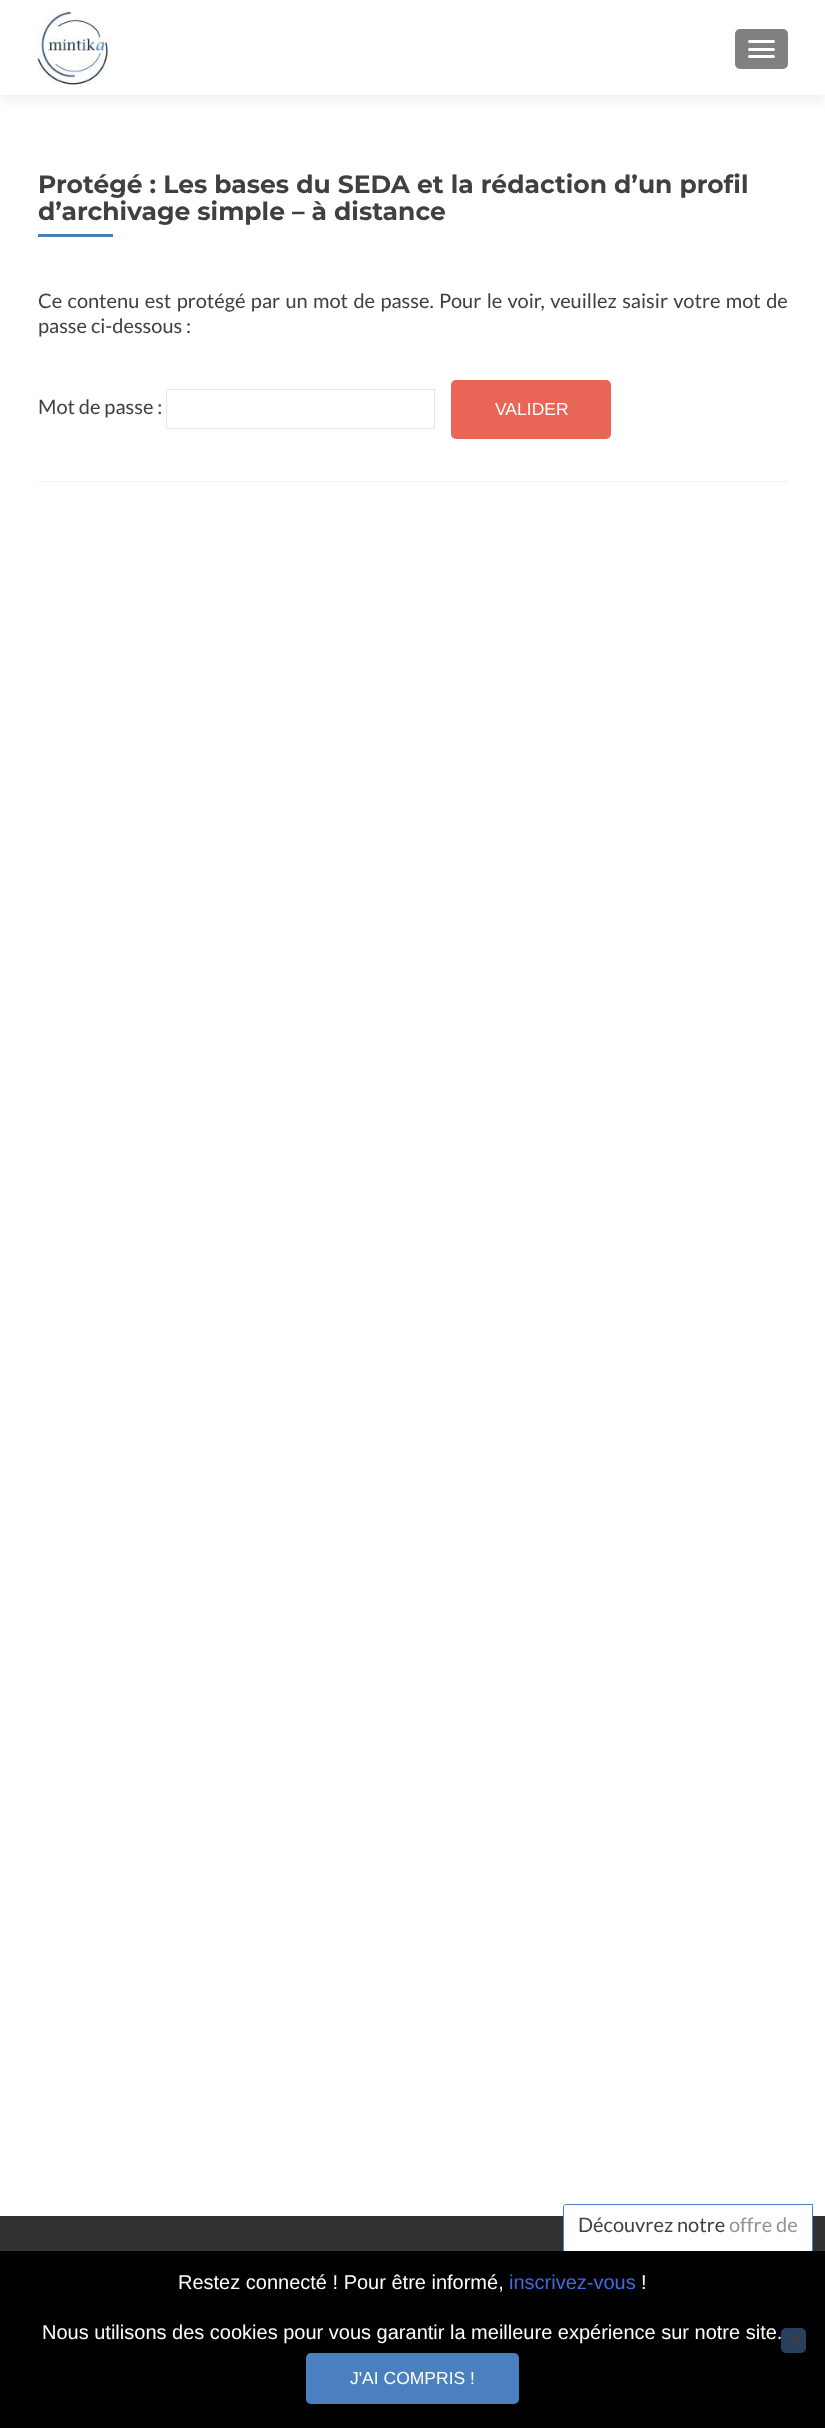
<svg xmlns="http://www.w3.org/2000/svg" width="825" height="2428">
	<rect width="100%" height="100%" fill="#FFFFFF" />
	<rect x="0" y="6" width="825" height="95" fill="#323232" fill-opacity="0.08" filter="blur(7px)" />
	<rect x="0" y="0" width="825" height="95" fill="#FFFFFF" />
	<image x="37" y="11" width="73" height="77" href="assets/img1.png" />
	<rect x="735" y="29" width="53" height="40" rx="5" fill="#808080" />
	<rect x="748" y="40" width="27" height="3" rx="1.5" fill="#FFFFFF" />
	<rect x="748" y="48" width="27" height="3" rx="1.5" fill="#FFFFFF" />
	<rect x="748" y="55" width="27" height="3" rx="1.5" fill="#FFFFFF" />
	<rect x="38" y="481" width="750" height="1" fill="#F2F2F2" />
	<g font-family="Montserrat" font-size="25" font-weight="100" fill="#404040">
		<text x="38" y="193">Protégé : Les bases du SEDA et la rédaction d’un profil</text>
		<text x="38" y="220">d’archivage simple – à distance</text>
	</g>
	<rect x="38" y="234" width="75" height="3" fill="#4A80C0" />
	<g font-family="Lato" font-size="20" fill="#404040">
		<text x="38" y="308" word-spacing="1.5">Ce contenu est protégé par un mot de passe. Pour le voir, veuillez saisir votre mot de</text>
		<text x="38" y="333">passe ci-dessous :</text>
		<text x="38" y="414">Mot de passe :</text>
	</g>
	<rect x="166.5" y="389.5" width="268" height="39" fill="none" stroke="#E6E6E6" />
	<rect x="451" y="380" width="160" height="59" rx="5" fill="#E96656" />
	<text x="495" y="415" font-family="Liberation Sans" font-size="17.5" fill="#FFFFFF">VALIDER</text>
	<rect x="0" y="2216" width="825" height="35" fill="#323232" />
	<path d="M565.5 2204.5H812.5V2413.5C812.5 2414.5 811.5 2415.5 810.5 2415.5H563.5V2206.5C563.5 2205.5 564.5 2204.5 565.5 2204.5Z" fill="#FFFFFF" stroke="#4A80C0" />
	<text x="578" y="2232" font-family="Lato" font-size="20" fill="#404040">Découvrez notre</text>
	<text x="729" y="2232" font-family="Lato" font-size="20" fill="#939393">offre de</text>
	<rect x="0" y="2251" width="825" height="177" fill="#000000" />
	<text x="178" y="2289" font-family="Liberation Sans" font-size="20" fill="#FFFFFF">Restez connecté ! Pour être informé,</text>
	<text x="509" y="2289" font-family="Liberation Sans" font-size="20" fill="#4169E1">inscrivez-vous</text>
	<g font-family="Liberation Sans" font-size="20" fill="#FFFFFF">
		<text x="641" y="2289">!</text>
		<text x="42" y="2339">Nous utilisons des cookies pour vous garantir la meilleure expérience sur notre site.</text>
	</g>
	<rect x="781" y="2328" width="25" height="25" rx="5" fill="#254060" />
	<path d="M800.5 2333L802.5 2335L789.5 2348L787.5 2346.5Z" fill="#404040" />
	<path d="M787.5 2335L789.5 2333L802.5 2346.5L800.5 2348Z" fill="#404040" />
	<rect x="306" y="2353" width="213" height="51" rx="5" fill="#4A80C0" />
	<text x="350" y="2384" font-family="Liberation Sans" font-size="17.5" fill="#FFFFFF">J'AI COMPRIS !</text>
</svg>
